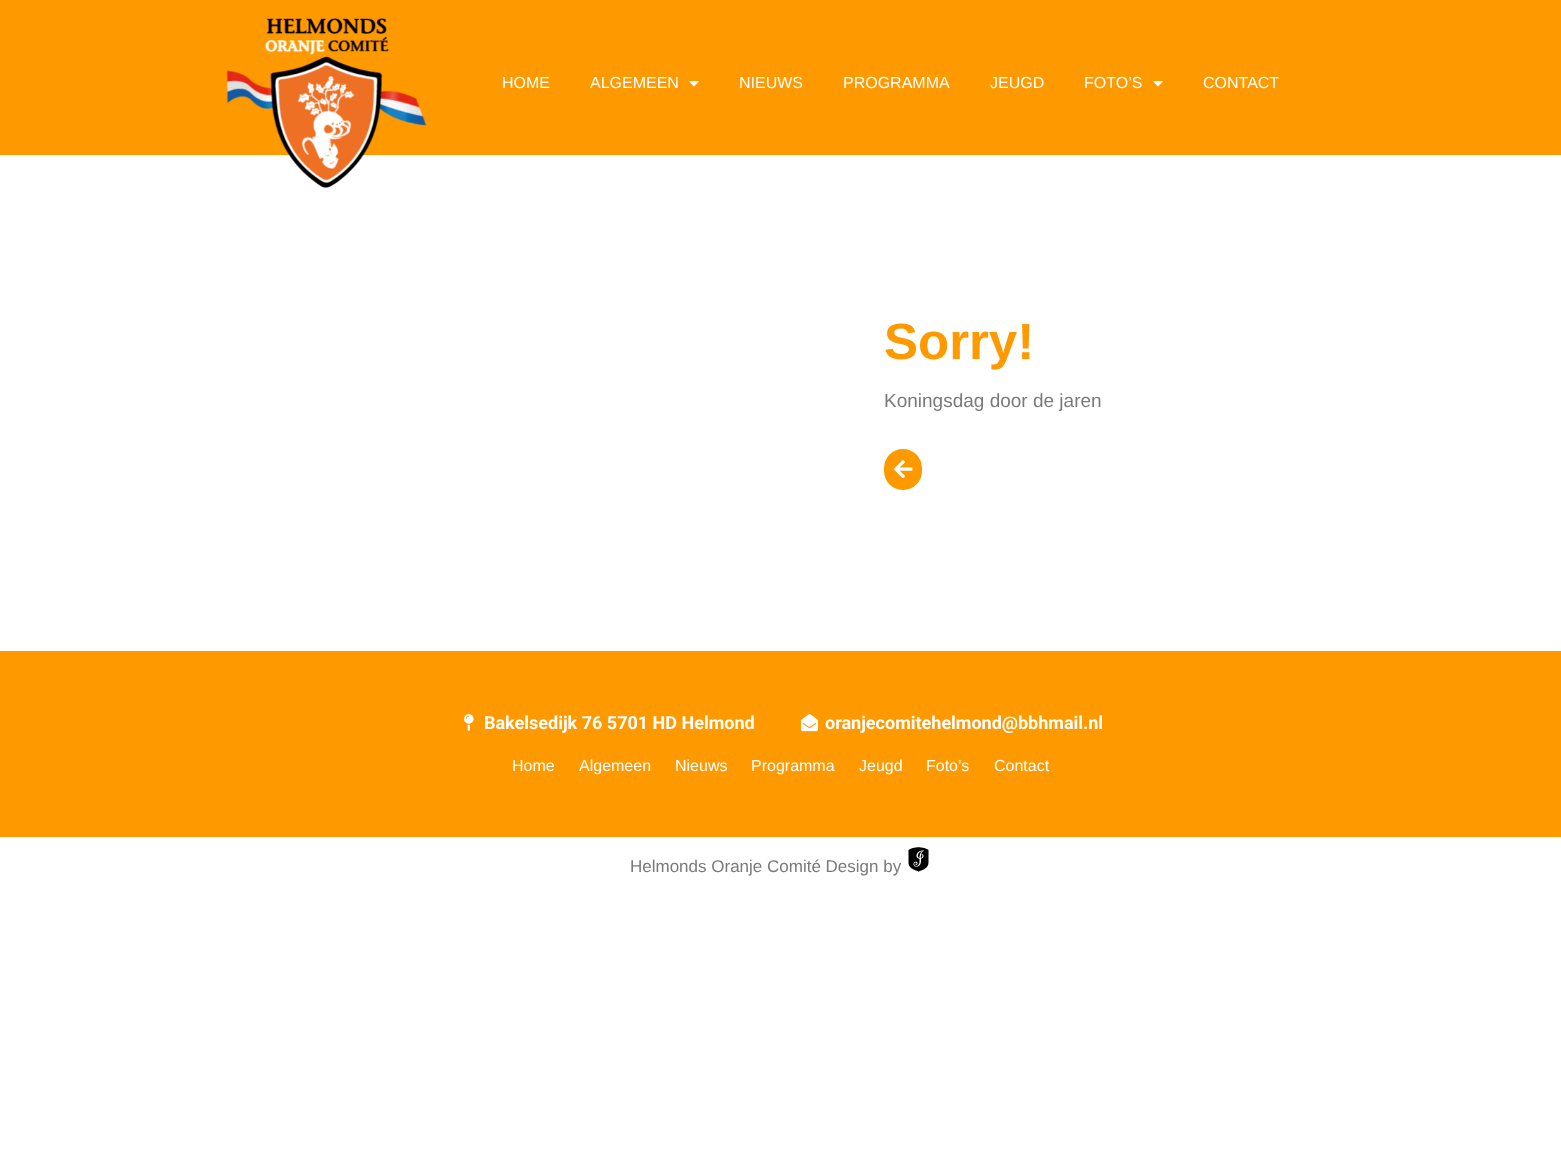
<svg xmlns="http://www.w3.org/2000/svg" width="1561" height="1172">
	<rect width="100%" height="100%" fill="#FFFFFF" />
	<rect x="0" y="0" width="1561" height="155" fill="#FF9900" />
	<image x="226" y="18" width="201" height="170" href="assets/img1.png" />
	<g font-family="Liberation Sans" font-size="16" fill="#FFFFFF">
		<text x="502" y="88">HOME</text>
		<text x="590" y="88">ALGEMEEN</text>
	</g>
	<image x="689" y="81" width="10" height="6" href="assets/img2.png" />
	<g font-family="Liberation Sans" font-size="16" fill="#FFFFFF">
		<text x="739" y="88">NIEUWS</text>
		<text x="843" y="88">PROGRAMMA</text>
		<text x="990" y="88">JEUGD</text>
		<text x="1084" y="88">FOTO’S</text>
	</g>
	<image x="1153" y="81" width="10" height="6" href="assets/img2.png" />
	<text x="1203" y="88" font-family="Liberation Sans" font-size="16" fill="#FFFFFF">CONTACT</text>
	<text x="884" y="359" font-family="Liberation Sans" font-size="51" font-weight="700" fill="#FF9900">Sorry!</text>
	<text x="884" y="407" font-family="Liberation Sans" font-size="19" fill="#7A7A7A">Koningsdag door de jaren</text>
	<rect x="884" y="449" width="38" height="41" rx="19" fill="#FF9900" />
	<image x="894" y="460" width="19" height="18" href="assets/img3.png" />
	<rect x="0" y="651" width="1561" height="186" fill="#FF9900" />
	<image x="464" y="714" width="10" height="18" href="assets/img4.png" />
	<text x="484" y="729" font-family="Roboto" font-size="18" font-weight="700" fill="#FFFFFF">Bakelsedijk 76 5701 HD Helmond</text>
	<image x="801" y="714" width="17" height="18" href="assets/img5.png" />
	<text x="825" y="729" font-family="Roboto" font-size="18" font-weight="700" fill="#FFFFFF">oranjecomitehelmond@bbhmail.nl</text>
	<g font-family="Liberation Sans" font-size="16" fill="#FFFFFF">
		<text x="512" y="771">Home</text>
		<text x="579" y="771">Algemeen</text>
		<text x="675" y="771">Nieuws</text>
		<text x="751" y="771">Programma</text>
		<text x="859" y="771">Jeugd</text>
		<text x="926" y="771">Foto’s</text>
		<text x="994" y="771">Contact</text>
	</g>
	<text x="630" y="872" font-family="Liberation Sans" font-size="17" fill="#7A7A7A">Helmonds Oranje Comité Design by</text>
	<image x="908" y="847" width="21" height="25" href="assets/img6.png" />
</svg>
